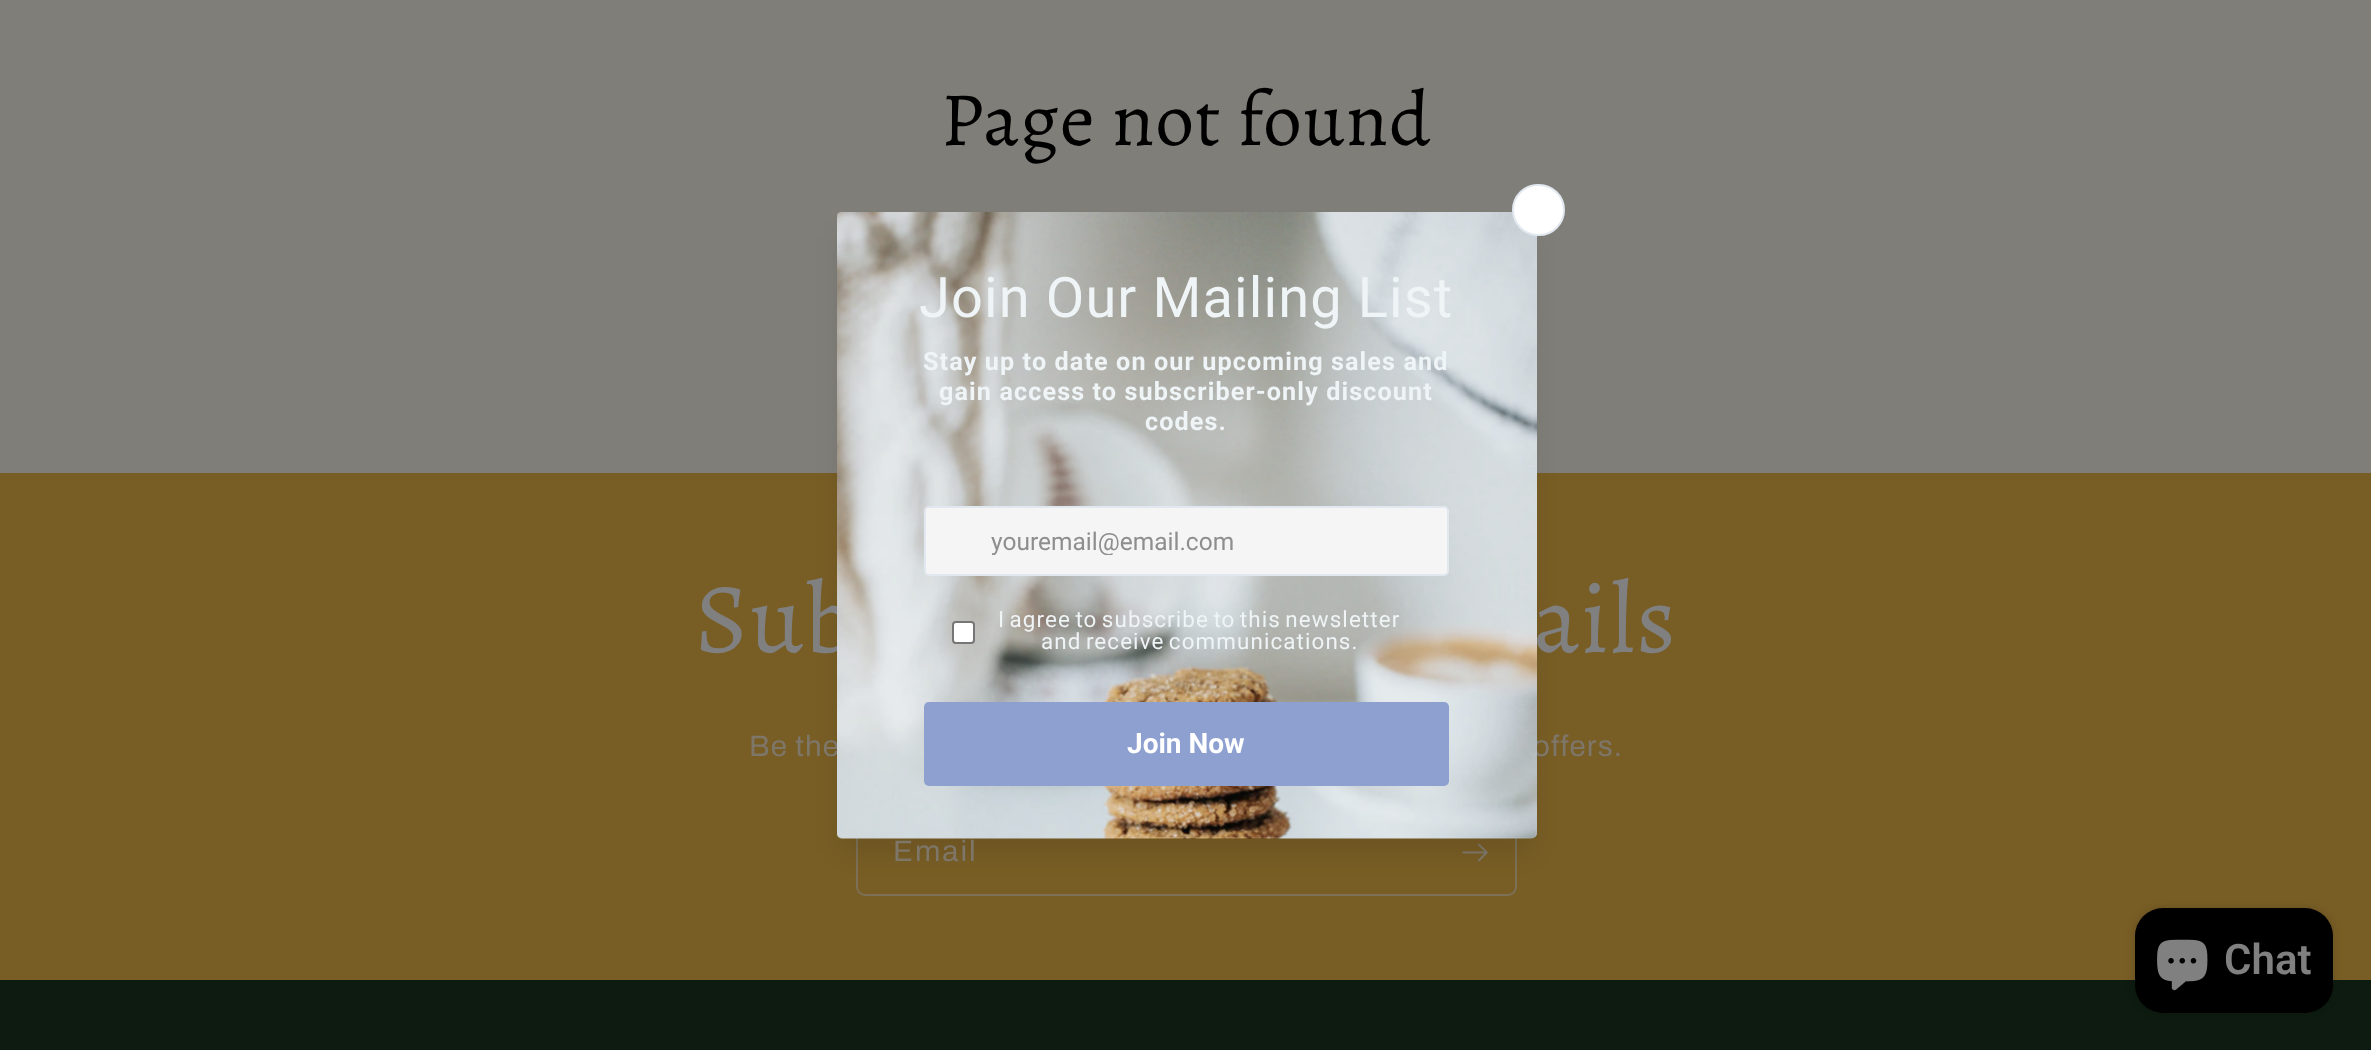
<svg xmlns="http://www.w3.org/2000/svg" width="2371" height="1050">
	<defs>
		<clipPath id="clip1"><rect x="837" y="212" width="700" height="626" /></clipPath>
		<clipPath id="clip2"><rect x="929" y="527" width="515" height="28" /></clipPath>
	</defs>
	<rect width="100%" height="100%" fill="#807E79" />
	<text x="941" y="145" font-family="Alegreya" font-size="77" letter-spacing="1.2" fill="#000000">Page not found</text>
	<rect x="0" y="473" width="2371" height="507" fill="#785D25" />
	<rect x="857" y="811" width="659" height="84" rx="8" fill="none" stroke="#7C7057" stroke-width="2" />
	<image x="1462" y="843" width="26" height="19" href="assets/img2.png" />
	<rect x="842" y="235" width="689" height="616" fill="#000000" fill-opacity="0.1" filter="blur(13px)" />
	<g clip-path="url(#clip1)">
		<rect x="842" y="217" width="689" height="616" fill="#000000" fill-opacity="0.12" filter="blur(17.5px)" />
	</g>
	<g font-family="Alegreya" font-size="100" letter-spacing="1.2" fill="#808080">
		<text x="695" y="652">Sub</text>
		<text x="1533" y="652">ails</text>
	</g>
	<g font-family="Archivo" font-size="29.5" letter-spacing="1.1" fill="#7E7769">
		<text x="749" y="756">Be the</text>
		<text x="1533" y="756">offers.</text>
	</g>
	<rect x="837" y="212" width="700" height="626" rx="5" fill="#C2C6CC" />
	<image x="837" y="212" width="700" height="627" href="assets/img1.png" />
	<rect x="1513" y="185" width="51" height="50" rx="25" fill="#FFFFFF" stroke="#E2E8F0" stroke-width="2" />
	<text x="919" y="317" font-family="Roboto" font-size="56" letter-spacing="1.1" fill="#EFF4F7">Join Our Mailing List</text>
	<g font-family="Roboto" font-size="25.2" font-weight="700" letter-spacing="1.1" fill="#EFF4F7">
		<text x="923" y="370">Stay up to date on our upcoming sales and</text>
		<text x="939" y="400">gain access to subscriber-only discount</text>
		<text x="1145" y="430">codes.</text>
	</g>
	<rect x="925" y="507" width="523" height="68" rx="4" fill="#F5F5F5" stroke="#E2E8F0" stroke-width="2" />
	<g clip-path="url(#clip2)">
		<text x="991" y="550" font-family="Roboto" font-size="24.5" fill="#8E8E8E">youremail@email.com</text>
	</g>
	<rect x="953" y="622" width="21" height="21" rx="3" fill="#FFFFFF" stroke="#767676" stroke-width="2" />
	<g font-family="Roboto" font-size="22.4" letter-spacing="1.1" fill="#EFF4F7">
		<text x="998" y="627" word-spacing="-2.25">I agree to subscribe to this newsletter</text>
		<text x="1041" y="649" word-spacing="-2.25">and receive communications.</text>
	</g>
	<rect x="924" y="702" width="525" height="84" rx="5" fill="#8EA0D0" />
	<text x="1127" y="753" font-family="Roboto" font-size="28" font-weight="700" fill="#FFFFFF">Join Now</text>
	<text x="893" y="861" font-family="Archivo" font-size="29.5" letter-spacing="2" fill="#7E7769">Email</text>
	<rect x="0" y="980" width="2371" height="70" fill="#0D1B10" />
	<rect x="2135" y="908" width="198" height="105" rx="28" fill="#000000" fill-opacity="0.15" filter="blur(4.5px)" />
	<rect x="2135" y="908" width="198" height="105" rx="28" fill="#000000" />
	<image x="2157" y="939" width="51" height="52" href="assets/img3.png" />
	<text x="2224" y="974" font-family="Roboto" font-size="42" font-weight="600" fill="#808080">Chat</text>
</svg>
